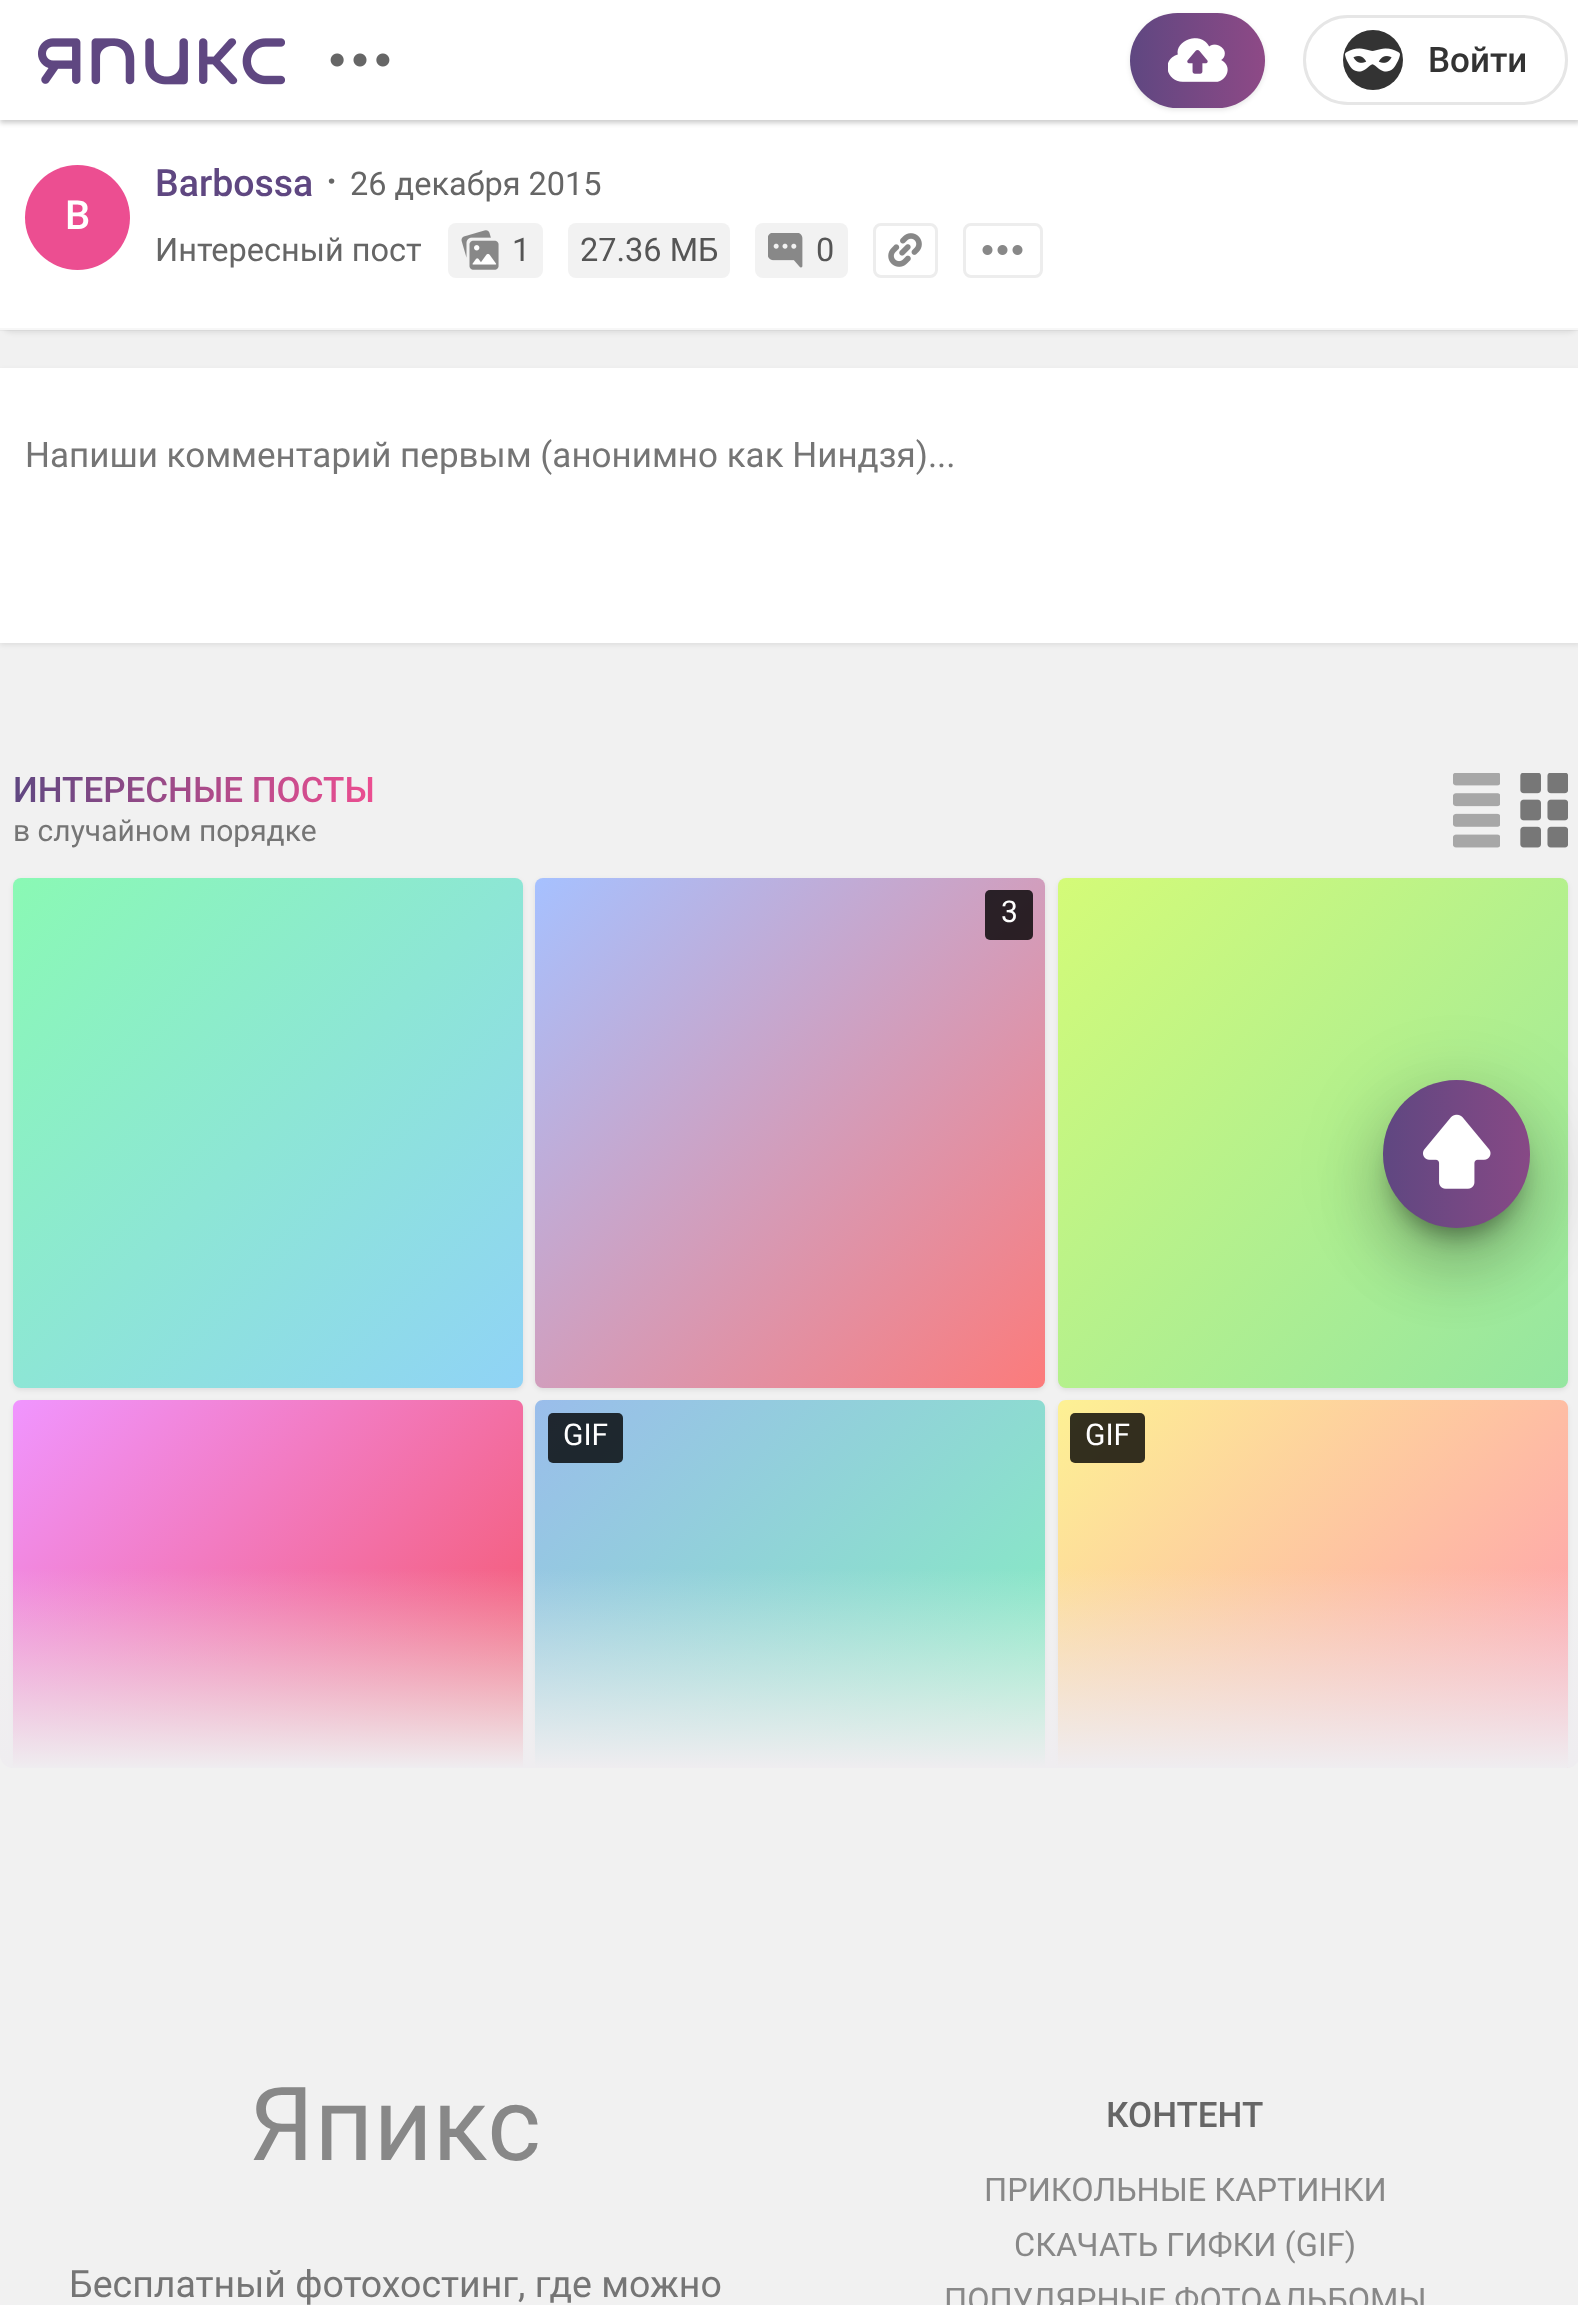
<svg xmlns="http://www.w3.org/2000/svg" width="1578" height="2305">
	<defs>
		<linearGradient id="g1" gradientUnits="userSpaceOnUse" x1="13" y1="790" x2="374" y2="790"><stop offset="0" stop-color="#5F4781" /><stop offset="1" stop-color="#EC4E91" /></linearGradient>
		<linearGradient id="g2" gradientUnits="userSpaceOnUse" x1="1130" y1="60" x2="1535" y2="60"><stop offset="0" stop-color="#5F4781" /><stop offset="1" stop-color="#EC4E91" /></linearGradient>
		<linearGradient id="g3" gradientUnits="userSpaceOnUse" x1="13" y1="878" x2="523" y2="1388"><stop offset="0" stop-color="#8AF9B4" /><stop offset="1" stop-color="#90D3F6" /></linearGradient>
		<linearGradient id="g4" gradientUnits="userSpaceOnUse" x1="535" y1="878" x2="1045" y2="1388"><stop offset="0" stop-color="#A6C1FF" /><stop offset="1" stop-color="#FC7B7B" /></linearGradient>
		<linearGradient id="g5" gradientUnits="userSpaceOnUse" x1="1058" y1="878" x2="1568" y2="1388"><stop offset="0" stop-color="#D4FB78" /><stop offset="1" stop-color="#95E6A1" /></linearGradient>
		<clipPath id="clip1"><rect x="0" y="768" width="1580" height="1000" rx="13" /></clipPath>
		<linearGradient id="g6" gradientUnits="userSpaceOnUse" x1="13" y1="1400" x2="523" y2="1910"><stop offset="0" stop-color="#F095FF" /><stop offset="1" stop-color="#F64848" /></linearGradient>
		<linearGradient id="g7" gradientUnits="userSpaceOnUse" x1="535" y1="1400" x2="1045" y2="1910"><stop offset="0" stop-color="#9ABDEB" /><stop offset="1" stop-color="#80F9B7" /></linearGradient>
		<linearGradient id="g8" gradientUnits="userSpaceOnUse" x1="1058" y1="1400" x2="1568" y2="1910"><stop offset="0" stop-color="#FDF194" /><stop offset="1" stop-color="#FF8AB3" /></linearGradient>
		<linearGradient id="g9" gradientUnits="userSpaceOnUse" x1="790" y1="1568" x2="790" y2="1768"><stop offset="0" stop-color="#EFEDF0" stop-opacity="0" /><stop offset="1" stop-color="#EFEDF0" /></linearGradient>
		<linearGradient id="g10" gradientUnits="userSpaceOnUse" x1="1383" y1="1154" x2="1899" y2="1154"><stop offset="0" stop-color="#5F4781" /><stop offset="1" stop-color="#EC4E91" /></linearGradient>
	</defs>
	<rect width="100%" height="100%" fill="#F1F1F1" />
	<rect x="0" y="-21" width="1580" height="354" rx="13" fill="#000000" fill-opacity="0.08" filter="blur(2.5px)" />
	<rect x="0" y="120" width="1578" height="210" fill="#FFFFFF" />
	<rect x="0" y="3" width="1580" height="120" fill="#000000" fill-opacity="0.2" filter="blur(2.5px)" />
	<rect x="0" y="0" width="1578" height="120" fill="#FFFFFF" />
	<image x="38" y="38" width="247" height="47" href="assets/img1.png" />
	<image x="330" y="53" width="60" height="14" href="assets/img2.png" />
	<rect x="1130" y="15" width="135" height="95" rx="47.5" fill="#000000" fill-opacity="0.1" filter="blur(2.5px)" />
	<rect x="1130" y="13" width="135" height="95" rx="47.5" fill="url(#g2)" />
	<image x="1168" y="38" width="60" height="44" href="assets/img3.png" />
	<rect x="1304.5" y="16.5" width="262" height="87" rx="43.5" fill="none" stroke="#E6E6E6" stroke-width="3" />
	<circle cx="1373" cy="60" r="30" fill="#333333" />
	<image x="1345" y="48" width="55" height="24" href="assets/img4.png" />
	<text x="1428" y="72" font-family="Roboto" font-size="35" font-weight="500" fill="#333333">Войти</text>
	<rect x="0" y="328" width="1578" height="3" fill="#000000" fill-opacity="0.03" />
	<circle cx="77.5" cy="217.5" r="52.5" fill="#EC4E91" />
	<text x="65" y="229" font-family="Roboto" font-size="40" font-weight="500" fill="#FFFFFF">B</text>
	<text x="155" y="196" font-family="Roboto" font-size="37.5" font-weight="500" fill="#5F4781">Barbossa</text>
	<text x="326" y="195" font-family="Roboto" font-size="40" font-weight="500" fill="#666666">·</text>
	<g font-family="Roboto" font-size="32.5" fill="#666666">
		<text x="350" y="195">26 декабря 2015</text>
		<text x="155" y="261">Интересный пост</text>
	</g>
	<rect x="448" y="223" width="95" height="55" rx="8" fill="#F2F2F2" />
	<image x="461" y="230" width="38" height="40" href="assets/img5.png" />
	<text x="512" y="261" font-family="Roboto" font-size="32.5" fill="#555555">1</text>
	<rect x="568" y="223" width="162" height="55" rx="8" fill="#F2F2F2" />
	<text x="580" y="261" font-family="Roboto" font-size="32.5" fill="#555555">27.36 МБ</text>
	<rect x="755" y="223" width="93" height="55" rx="8" fill="#F2F2F2" />
	<image x="768" y="233" width="35" height="35" href="assets/img6.png" />
	<text x="816" y="261" font-family="Roboto" font-size="32.5" fill="#555555">0</text>
	<rect x="874.5" y="224.5" width="62" height="52" rx="6.5" fill="none" stroke="#EDEDED" stroke-width="3" />
	<image x="888" y="233" width="34" height="34" href="assets/img7.png" />
	<rect x="964.5" y="224.5" width="77" height="52" rx="6.5" fill="none" stroke="#EDEDED" stroke-width="3" />
	<image x="982" y="245" width="41" height="10" href="assets/img8.png" />
	<rect x="0" y="370" width="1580" height="275" fill="#000000" fill-opacity="0.08" filter="blur(2.5px)" />
	<rect x="0" y="368" width="1578" height="275" fill="#FFFFFF" />
	<text x="25" y="467" font-family="Roboto" font-size="35" fill="#757575">Напиши комментарий первым (анонимно как Ниндзя)...</text>
	<text x="13" y="802" font-family="Roboto" font-size="35" font-weight="500" fill="url(#g1)">ИНТЕРЕСНЫЕ ПОСТЫ</text>
	<text x="13" y="841" font-family="Roboto" font-size="30" fill="#757575">в случайном порядке</text>
	<image x="1453" y="773" width="47" height="75" href="assets/img9.png" />
	<image x="1520" y="773" width="48" height="75" href="assets/img10.png" />
	<rect x="13" y="880" width="510" height="510" rx="8" fill="#000000" fill-opacity="0.08" filter="blur(2.5px)" />
	<rect x="13" y="878" width="510" height="510" rx="8" fill="url(#g3)" />
	<rect x="535" y="880" width="510" height="510" rx="8" fill="#000000" fill-opacity="0.08" filter="blur(2.5px)" />
	<rect x="535" y="878" width="510" height="510" rx="8" fill="url(#g4)" />
	<rect x="985" y="890" width="48" height="50" rx="5" fill="#000000" fill-opacity="0.8" />
	<text x="1001" y="922" font-family="Roboto" font-size="30" fill="#FFFFFF">3</text>
	<rect x="1058" y="880" width="510" height="510" rx="8" fill="#000000" fill-opacity="0.08" filter="blur(2.5px)" />
	<rect x="1058" y="878" width="510" height="510" rx="8" fill="url(#g5)" />
	<g clip-path="url(#clip1)">
		<rect x="13" y="1403" width="510" height="510" rx="8" fill="#000000" fill-opacity="0.08" filter="blur(2.5px)" />
	</g>
	<path d="M21 1400H515C519.5 1400 523 1403.5 523 1408V1768H13V1408C13 1403.5 16.5 1400 21 1400Z" fill="url(#g6)" />
	<g clip-path="url(#clip1)">
		<rect x="535" y="1403" width="510" height="510" rx="8" fill="#000000" fill-opacity="0.08" filter="blur(2.5px)" />
	</g>
	<path d="M543 1400H1037C1041.5 1400 1045 1403.5 1045 1408V1768H535V1408C535 1403.5 538.5 1400 543 1400Z" fill="url(#g7)" />
	<rect x="548" y="1413" width="75" height="50" rx="5" fill="#000000" fill-opacity="0.8" />
	<text x="563" y="1445" font-family="Roboto" font-size="30" fill="#FFFFFF">GIF</text>
	<g clip-path="url(#clip1)">
		<rect x="1058" y="1403" width="510" height="510" rx="8" fill="#000000" fill-opacity="0.08" filter="blur(2.5px)" />
	</g>
	<path d="M1066 1400H1560C1564.5 1400 1568 1403.5 1568 1408V1768H1058V1408C1058 1403.5 1061.5 1400 1066 1400Z" fill="url(#g8)" />
	<rect x="1070" y="1413" width="75" height="50" rx="5" fill="#000000" fill-opacity="0.8" />
	<text x="1085" y="1445" font-family="Roboto" font-size="30" fill="#FFFFFF">GIF</text>
	<path d="M0 1568H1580V1755C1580 1762 1574 1768 1567 1768H13C6 1768 0 1762 0 1755Z" fill="url(#g9)" />
	<text x="249" y="2160" font-family="Roboto" font-size="102.5" fill="#888888">Япикс</text>
	<text x="69" y="2297" font-family="Roboto" font-size="37.5" fill="#757575">Бесплатный фотохостинг, где можно</text>
	<text x="1106" y="2127" font-family="Roboto" font-size="35" font-weight="500" fill="#666666">КОНТЕНТ</text>
	<g font-family="Roboto" font-size="32.5" fill="#888888">
		<text x="984" y="2201">ПРИКОЛЬНЫЕ КАРТИНКИ</text>
		<text x="1014" y="2256">СКАЧАТЬ ГИФКИ (GIF)</text>
		<text x="944" y="2311">ПОПУЛЯРНЫЕ ФОТОАЛЬБОМЫ</text>
	</g>
	<rect x="1395" y="1113" width="123" height="122" rx="61" fill="#000000" fill-opacity="0.4" filter="blur(12.5px)" />
	<rect x="1370" y="1083" width="173" height="172" rx="86" fill="#000000" fill-opacity="0.12" filter="blur(37.5px)" />
	<rect x="1378" y="1115" width="157" height="158" rx="78.5" fill="#000000" fill-opacity="0.14" filter="blur(30px)" />
	<rect x="1383" y="1080" width="147" height="148" rx="73.5" fill="url(#g10)" />
	<image x="1423" y="1114" width="68" height="75" href="assets/img11.png" />
</svg>
